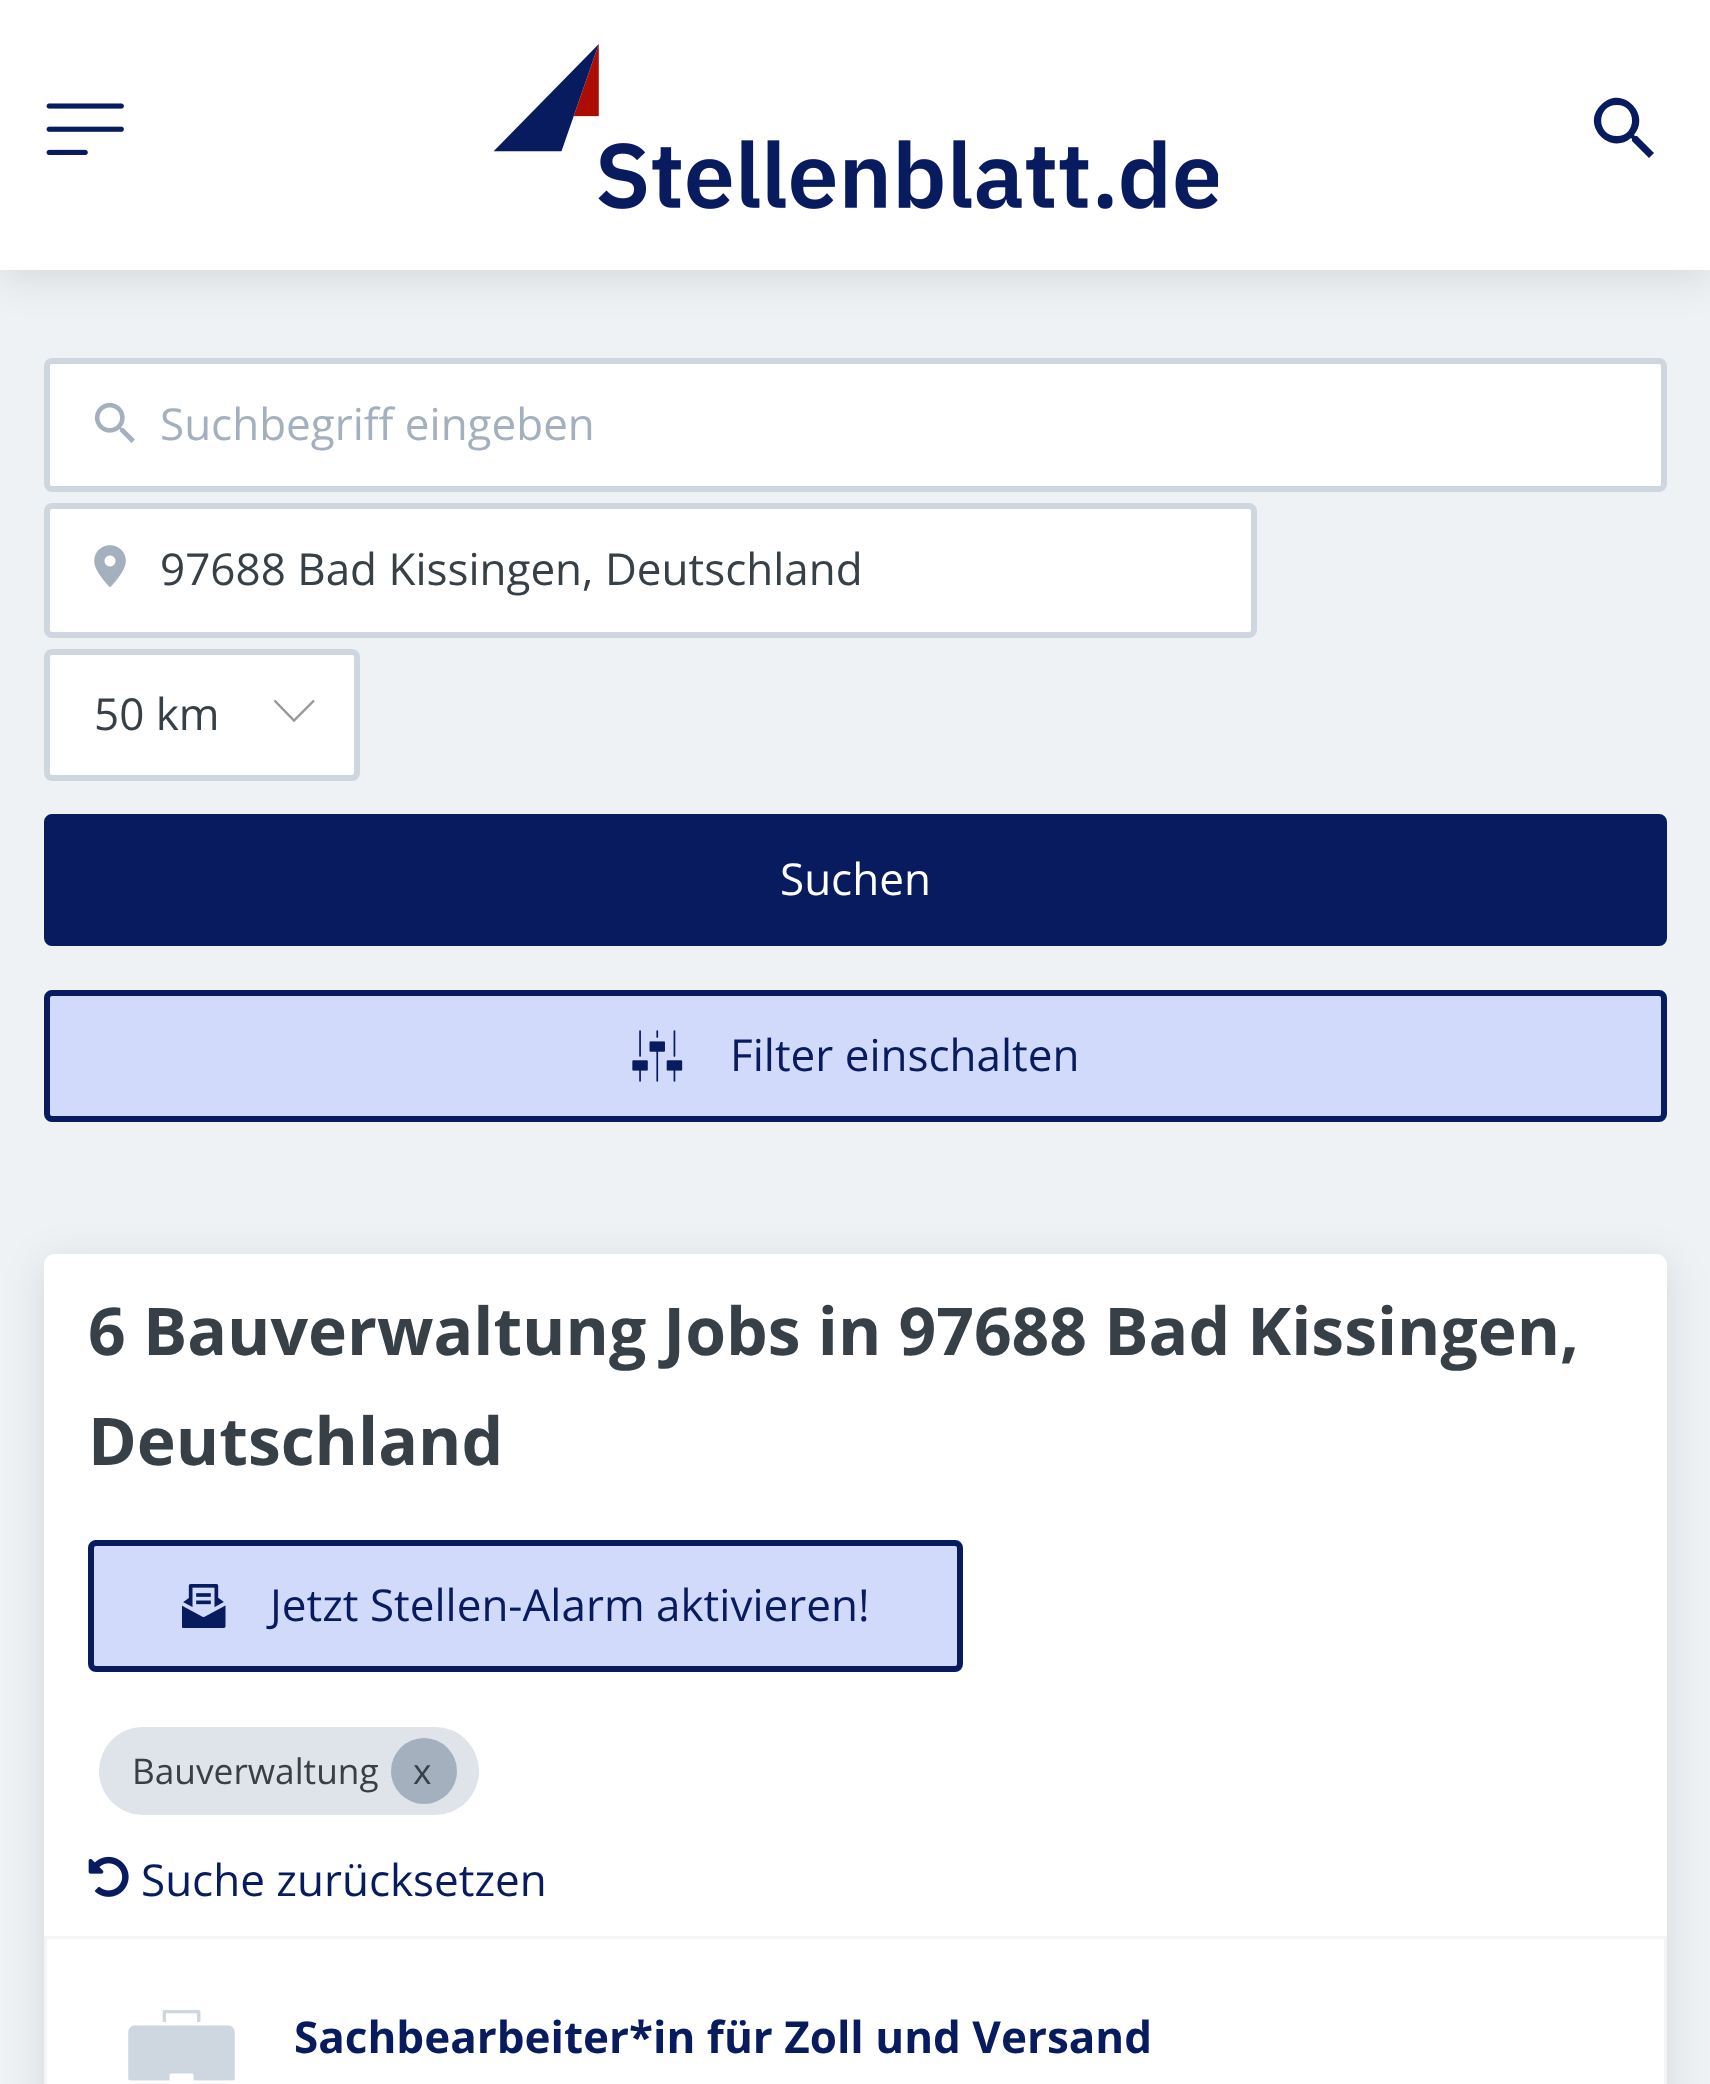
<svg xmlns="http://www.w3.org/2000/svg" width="1710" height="2084">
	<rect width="100%" height="100%" fill="#EFF2F4" />
	<rect x="0" y="8" width="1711" height="270" fill="#000000" fill-opacity="0.1" filter="blur(20.5px)" />
	<rect x="0" y="0" width="1710" height="270" fill="#FFFFFF" />
	<image x="46" y="103" width="78" height="52" href="assets/img1.png" />
	<image x="493" y="44" width="725" height="165" href="assets/img2.png" />
	<path d="M1637 136H1635L1634 135C1652 114 1621 84 1601 105C1580 125 1610 156 1631 138L1632 139V141L1649 158L1654 153ZM1617 136C1596 136 1596 105 1617 105C1637 105 1637 136 1617 136Z" fill="#081B5F" />
	<rect x="47" y="361" width="1617" height="128" rx="5" fill="#FFFFFF" stroke="#CED7E0" stroke-width="6" />
	<image x="94" y="402" width="41" height="41" href="assets/img3.png" />
	<text x="160" y="440" font-family="Open Sans" font-size="44" fill="#A4B0BE">Suchbegriff eingeben</text>
	<rect x="47" y="506" width="1207" height="129" rx="5" fill="#FFFFFF" stroke="#CED7E0" stroke-width="6" />
	<image x="94" y="545" width="32" height="42" href="assets/img4.png" />
	<text x="160" y="585" font-family="Open Sans" font-size="44" fill="#374047">97688 Bad Kissingen, Deutschland</text>
	<rect x="47" y="652" width="310" height="126" rx="5" fill="#FFFFFF" stroke="#CED7E0" stroke-width="6" />
	<text x="94" y="730" font-family="Open Sans" font-size="44" fill="#374047">50 km</text>
	<path d="M274.5 700.5L294 720.5L314 700.5" fill="none" stroke="#979797" stroke-width="2.4" />
	<rect x="47" y="817" width="1617" height="126" rx="5" fill="#081B5F" stroke="#081B5F" stroke-width="6" />
	<text x="780" y="895" font-family="Open Sans" font-size="44" fill="#FFFFFF">Suchen</text>
	<rect x="47" y="993" width="1617" height="126" rx="5" fill="#D1DAFB" stroke="#081B5F" stroke-width="6" />
	<image x="632" y="1030" width="51" height="52" href="assets/img5.png" />
	<text x="730" y="1071" font-family="Open Sans" font-size="44" fill="#081B5F">Filter einschalten</text>
	<rect x="44" y="1262" width="1623" height="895" rx="11" fill="#000000" fill-opacity="0.1" filter="blur(20.5px)" />
	<rect x="44" y="1254" width="1623" height="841" rx="11" fill="#FFFFFF" />
	<g font-family="Open Sans" font-size="66" font-weight="700" fill="#374047">
		<text x="88" y="1355">6 Bauverwaltung Jobs in 97688 Bad Kissingen,</text>
		<text x="88" y="1465">Deutschland</text>
	</g>
	<rect x="91" y="1543" width="869" height="126" rx="5" fill="#D1DAFB" stroke="#081B5F" stroke-width="6" />
	<image x="182" y="1584" width="44" height="44" href="assets/img6.png" />
	<text x="270" y="1621" font-family="Open Sans" font-size="44" fill="#081B5F">Jetzt Stellen-Alarm aktivieren!</text>
	<rect x="99" y="1727" width="380" height="88" rx="44" fill="#DFE4EA" />
	<text x="132" y="1784" font-family="Open Sans" font-size="35.25" fill="#374047">Bauverwaltung</text>
	<circle cx="424" cy="1771" r="33" fill="#A4B0BE" />
	<text x="413" y="1784" font-family="Open Sans" font-size="35.25" fill="#374047">x</text>
	<image x="88" y="1856" width="41" height="41" href="assets/img7.png" />
	<text x="141" y="1896" font-family="Open Sans" font-size="44" fill="#081B5F">Suche zurücksetzen</text>
	<rect x="45.5" y="1937.5" width="1620" height="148" fill="none" stroke="#F5F5F5" stroke-width="3" />
	<image x="128" y="2010" width="107" height="74" href="assets/img8.png" />
	<text x="294" y="2053" font-family="Open Sans" font-size="44" font-weight="700" fill="#081B5F">Sachbearbeiter*in für Zoll und Versand</text>
</svg>
